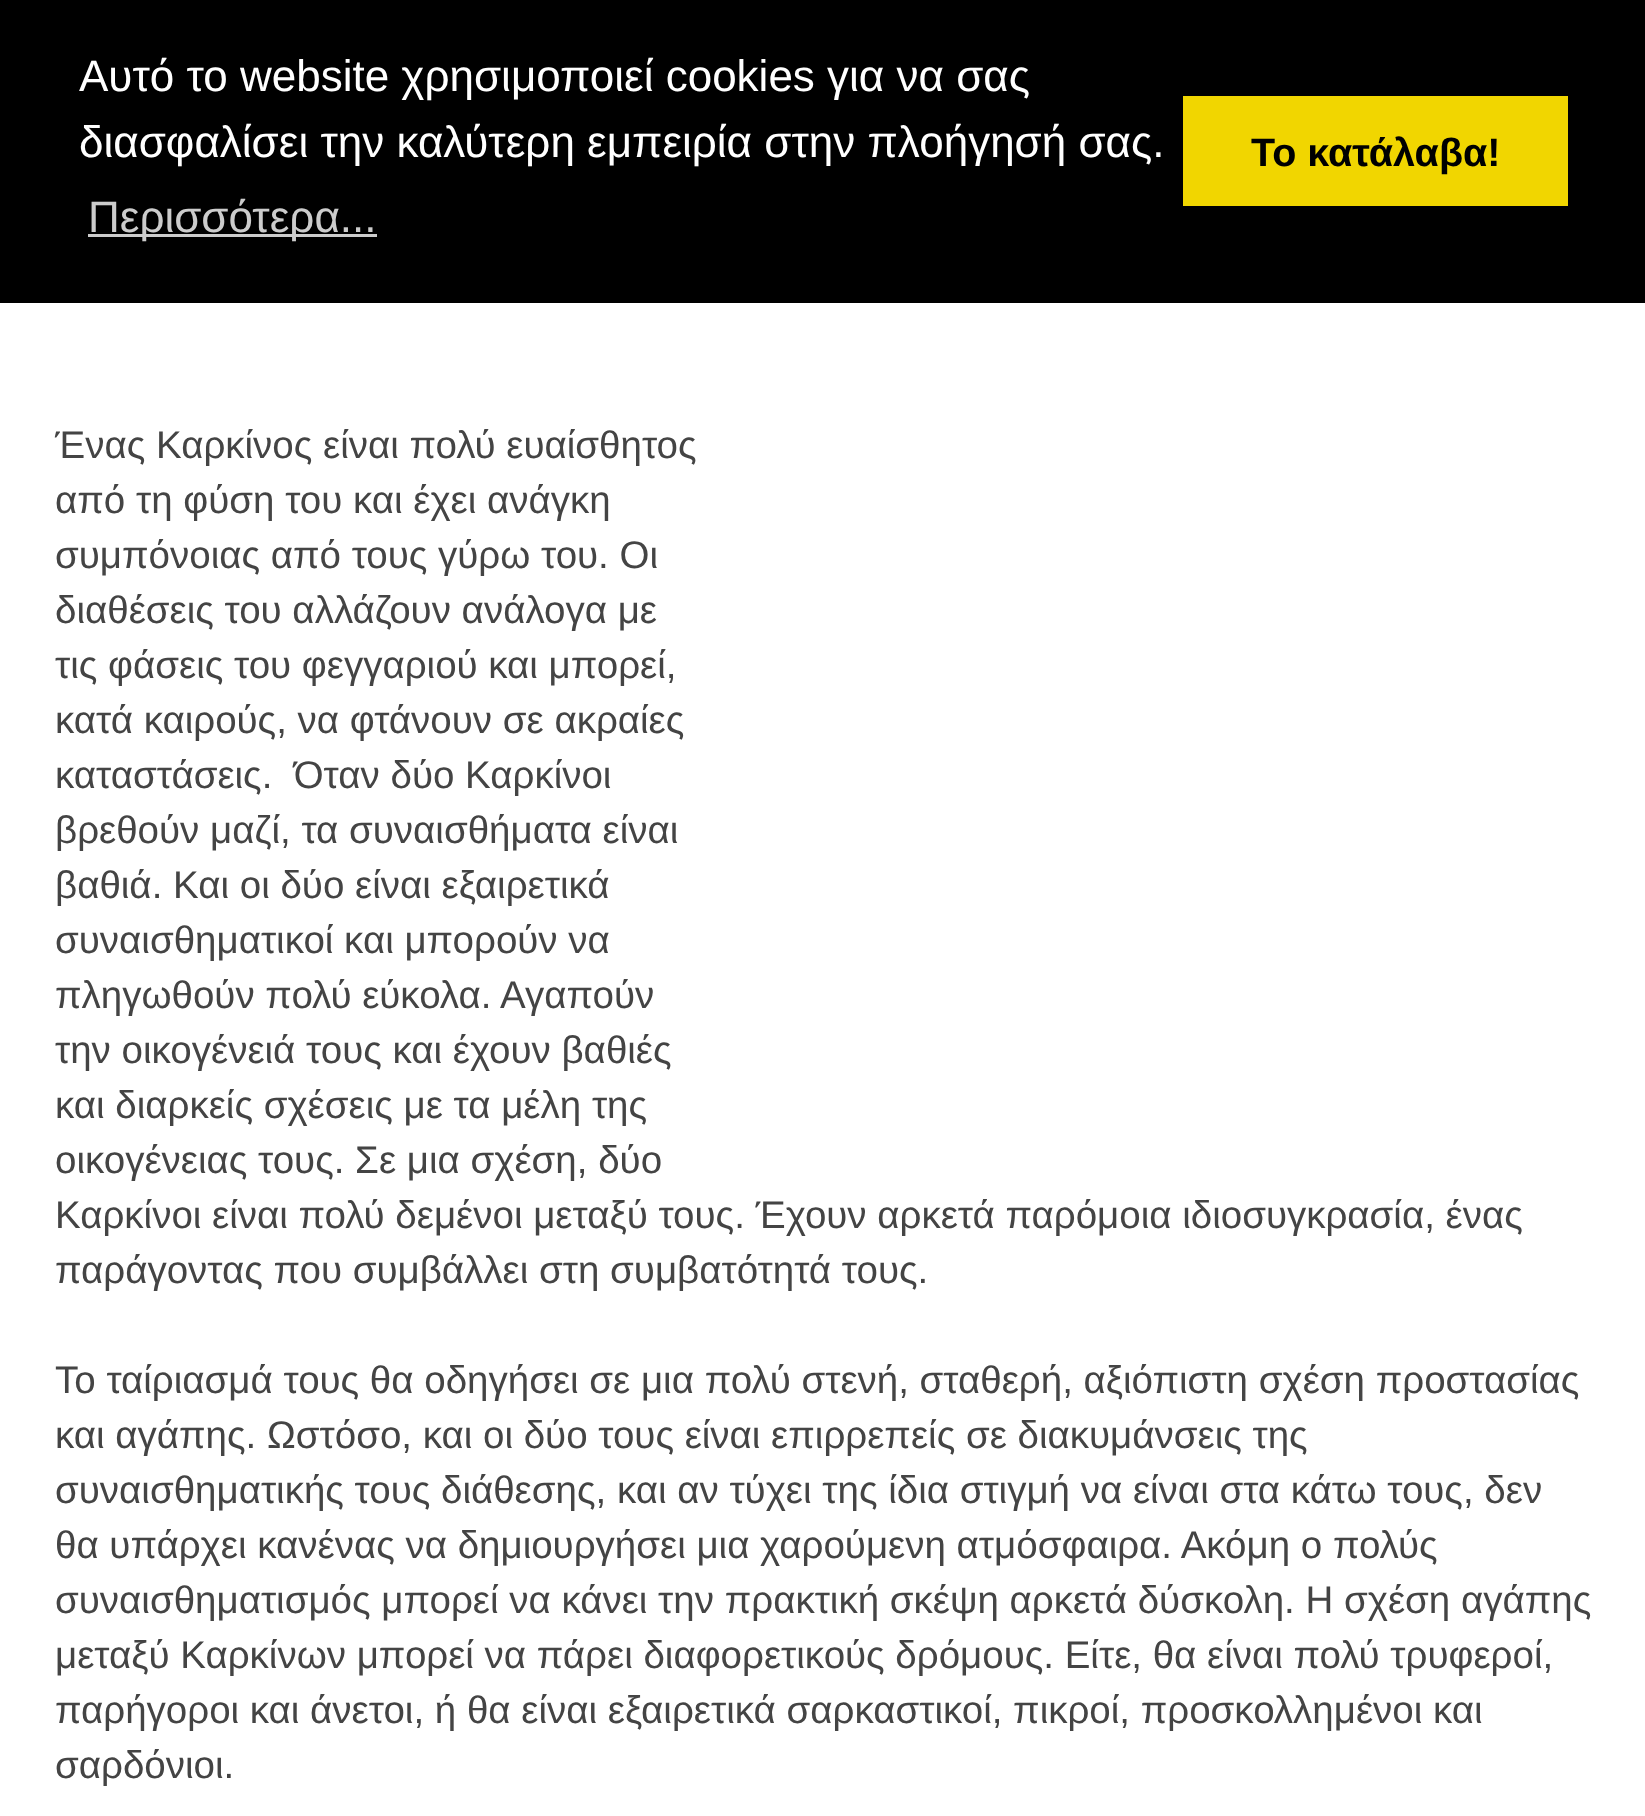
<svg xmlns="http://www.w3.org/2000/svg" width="1645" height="1816">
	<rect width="100%" height="100%" fill="#FFFFFF" />
	<rect x="0" y="0" width="1645" height="303" fill="#000000" />
	<g font-family="Liberation Sans" font-size="44" fill="#FFFFFF">
		<text x="79" y="91">Αυτό το website χρησιμοποιεί cookies για να σας</text>
		<text x="79" y="157">διασφαλίσει την καλύτερη εμπειρία στην πλοήγησή σας.</text>
	</g>
	<rect x="88" y="234" width="289" height="3" fill="#CCCCCC" />
	<text x="88" y="232" font-family="Liberation Sans" font-size="44" fill="#CCCCCC">Περισσότερα...</text>
	<rect x="1183" y="96" width="385" height="110" fill="#F1D600" />
	<text x="1251" y="166" font-family="Liberation Sans" font-size="39.5" font-weight="700" fill="#000000">Το κατάλαβα!</text>
	<g font-family="Liberation Sans" font-size="38.5" fill="#444444">
		<text x="55" y="458">Ένας Καρκίνος είναι πολύ ευαίσθητος</text>
		<text x="55" y="513">από τη φύση του και έχει ανάγκη</text>
		<text x="55" y="568">συμπόνοιας από τους γύρω του. Οι</text>
		<text x="55" y="623">διαθέσεις του αλλάζουν ανάλογα με</text>
		<text x="55" y="678">τις φάσεις του φεγγαριού και μπορεί,</text>
		<text x="55" y="733">κατά καιρούς, να φτάνουν σε ακραίες</text>
		<text x="55" y="788" xml:space="preserve">καταστάσεις.  Όταν δύο Καρκίνοι</text>
		<text x="55" y="843">βρεθούν μαζί, τα συναισθήματα είναι</text>
		<text x="55" y="898">βαθιά. Και οι δύο είναι εξαιρετικά</text>
		<text x="55" y="953">συναισθηματικοί και μπορούν να</text>
		<text x="55" y="1008">πληγωθούν πολύ εύκολα. Αγαπούν</text>
		<text x="55" y="1063">την οικογένειά τους και έχουν βαθιές</text>
		<text x="55" y="1118">και διαρκείς σχέσεις με τα μέλη της</text>
		<text x="55" y="1173">οικογένειας τους. Σε μια σχέση, δύο</text>
		<text x="55" y="1228">Καρκίνοι είναι πολύ δεμένοι μεταξύ τους. Έχουν αρκετά παρόμοια ιδιοσυγκρασία, ένας</text>
		<text x="55" y="1283">παράγοντας που συμβάλλει στη συμβατότητά τους.</text>
		<text x="55" y="1393">Το ταίριασμά τους θα οδηγήσει σε μια πολύ στενή, σταθερή, αξιόπιστη σχέση προστασίας</text>
		<text x="55" y="1448">και αγάπης. Ωστόσο, και οι δύο τους είναι επιρρεπείς σε διακυμάνσεις της</text>
		<text x="55" y="1503">συναισθηματικής τους διάθεσης, και αν τύχει της ίδια στιγμή να είναι στα κάτω τους, δεν</text>
		<text x="55" y="1558">θα υπάρχει κανένας να δημιουργήσει μια χαρούμενη ατμόσφαιρα. Ακόμη ο πολύς</text>
		<text x="55" y="1613">συναισθηματισμός μπορεί να κάνει την πρακτική σκέψη αρκετά δύσκολη. Η σχέση αγάπης</text>
		<text x="55" y="1668">μεταξύ Καρκίνων μπορεί να πάρει διαφορετικούς δρόμους. Είτε, θα είναι πολύ τρυφεροί,</text>
		<text x="55" y="1723">παρήγοροι και άνετοι, ή θα είναι εξαιρετικά σαρκαστικοί, πικροί, προσκολλημένοι και</text>
		<text x="55" y="1778">σαρδόνιοι.</text>
	</g>
</svg>
